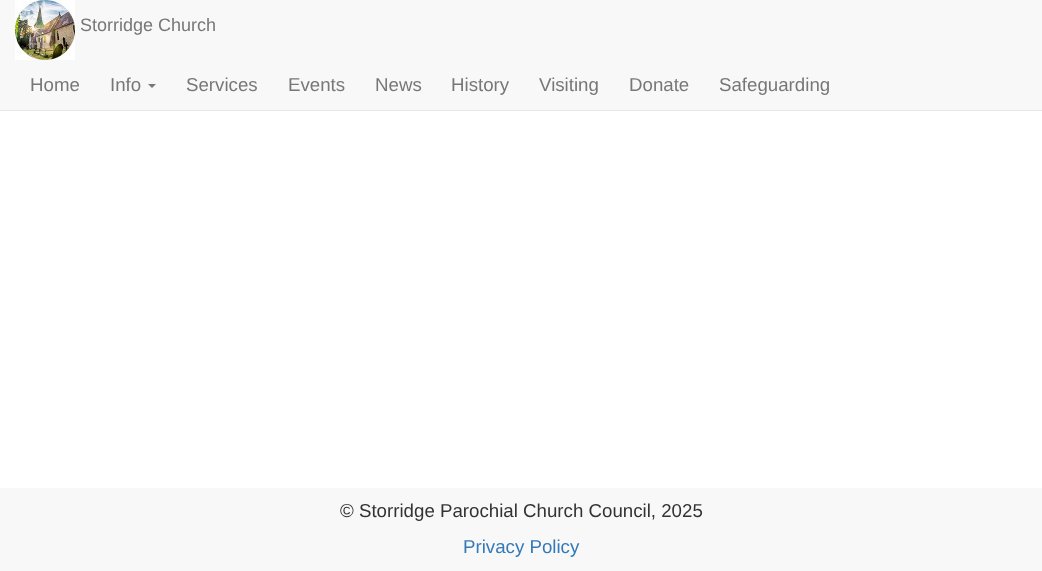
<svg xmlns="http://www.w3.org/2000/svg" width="1042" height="571">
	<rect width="100%" height="100%" fill="#FFFFFF" />
	<rect x="0" y="0" width="1042" height="110" fill="#F8F8F8" />
	<rect x="0" y="110" width="1042" height="1" fill="#E7E7E7" />
	<image x="15" y="0" width="60" height="60" href="assets/img1.png" />
	<text x="80" y="31" font-family="Liberation Sans" font-size="18" fill="#777777">Storridge Church</text>
	<g font-family="Liberation Sans" font-size="18.7" fill="#777777">
		<text x="30" y="91">Home</text>
		<text x="110" y="91">Info</text>
	</g>
	<path d="M148 84H156L152 88Z" fill="#777777" />
	<g font-family="Liberation Sans" font-size="18.7" fill="#777777">
		<text x="186" y="91">Services</text>
		<text x="288" y="91">Events</text>
		<text x="375" y="91">News</text>
		<text x="451" y="91">History</text>
		<text x="539" y="91">Visiting</text>
		<text x="629" y="91">Donate</text>
		<text x="719" y="91">Safeguarding</text>
	</g>
	<rect x="0" y="488" width="1042" height="83" fill="#F8F8F8" />
	<text x="340" y="517" font-family="Liberation Sans" font-size="18.7" fill="#333333">© Storridge Parochial Church Council, 2025</text>
	<text x="463" y="553" font-family="Liberation Sans" font-size="18.7" fill="#337AB7">Privacy Policy</text>
</svg>
